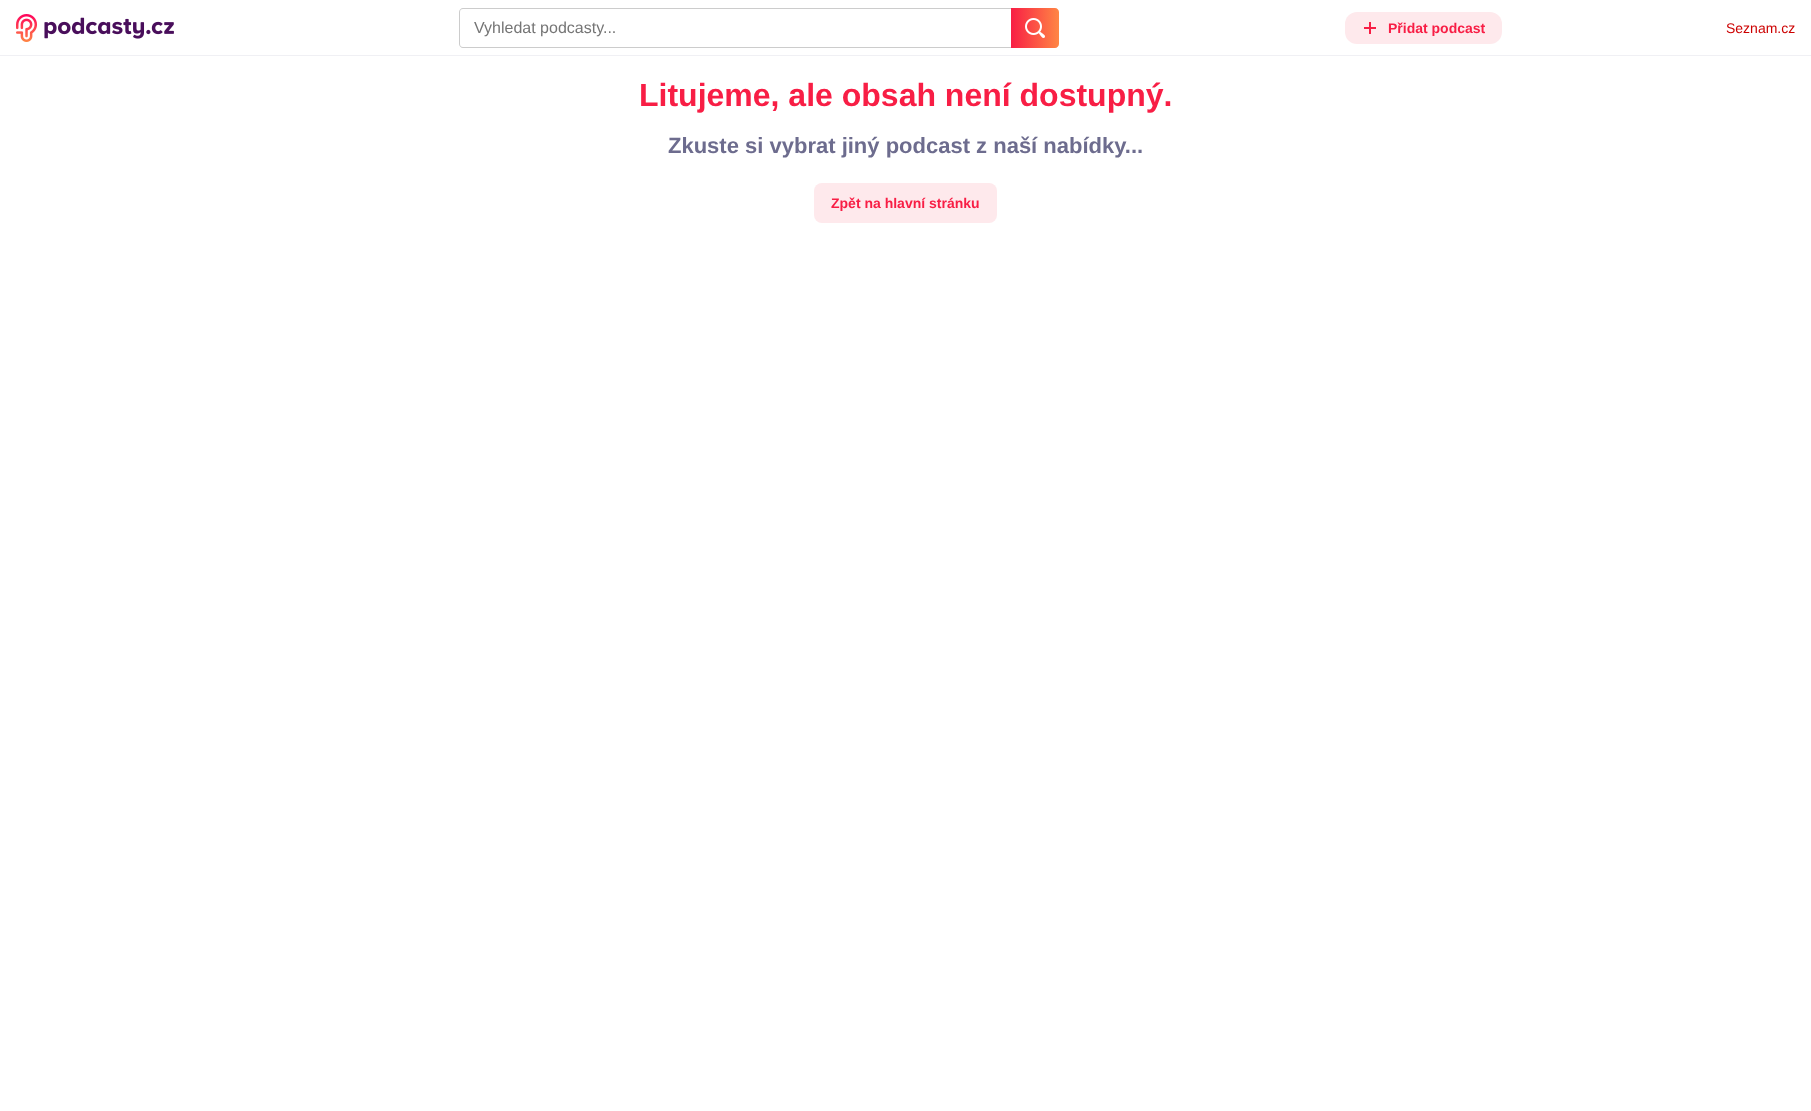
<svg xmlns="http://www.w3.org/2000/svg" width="1811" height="1111">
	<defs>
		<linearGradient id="g1" gradientUnits="userSpaceOnUse" x1="1011" y1="28" x2="1059" y2="28"><stop offset="0" stop-color="#F81E45" /><stop offset="1" stop-color="#FF8644" /></linearGradient>
	</defs>
	<rect width="100%" height="100%" fill="#FFFFFF" />
	<rect x="0" y="55" width="1811" height="1" fill="#F0F0F4" />
	<image x="16" y="14" width="158" height="28" href="assets/img1.png" />
	<path d="M463 8H1011V48H463C461 48 459 46 459 44V12C459 10 461 8 463 8ZM463 9H1011V47H463C461 47 460 46 460 44V12C460 10 461 9 463 9Z" fill="#CCCCCC" fill-rule="evenodd" />
	<text x="474" y="33" font-family="Liberation Sans" font-size="16" fill="#757575">Vyhledat podcasty...</text>
	<path d="M1011 8H1055C1057 8 1059 10 1059 12V44C1059 46 1057 48 1055 48H1011Z" fill="url(#g1)" />
	<image x="1025" y="18" width="20" height="20" href="assets/img2.png" />
	<rect x="1345" y="12" width="157" height="32" rx="12" fill="#FEE9EC" />
	<image x="1364" y="22" width="12" height="12" href="assets/img3.png" />
	<text x="1388" y="33" font-family="Liberation Sans" font-size="14" font-weight="700" fill="#F81E45">Přidat podcast</text>
	<text x="1726" y="33" font-family="Liberation Sans" font-size="14" fill="#CC0000">Seznam.cz</text>
	<text x="639" y="106" font-family="Liberation Sans" font-size="32" font-weight="700" fill="#F81E45">Litujeme, ale obsah není dostupný.</text>
	<text x="668" y="153" font-family="Liberation Sans" font-size="22" font-weight="700" fill="#6D6C8E">Zkuste si vybrat jiný podcast z naší nabídky...</text>
	<rect x="814" y="183" width="183" height="40" rx="8" fill="#FEE9EC" />
	<text x="831" y="208" font-family="Liberation Sans" font-size="14" font-weight="700" fill="#F81E45">Zpět na hlavní stránku</text>
</svg>
